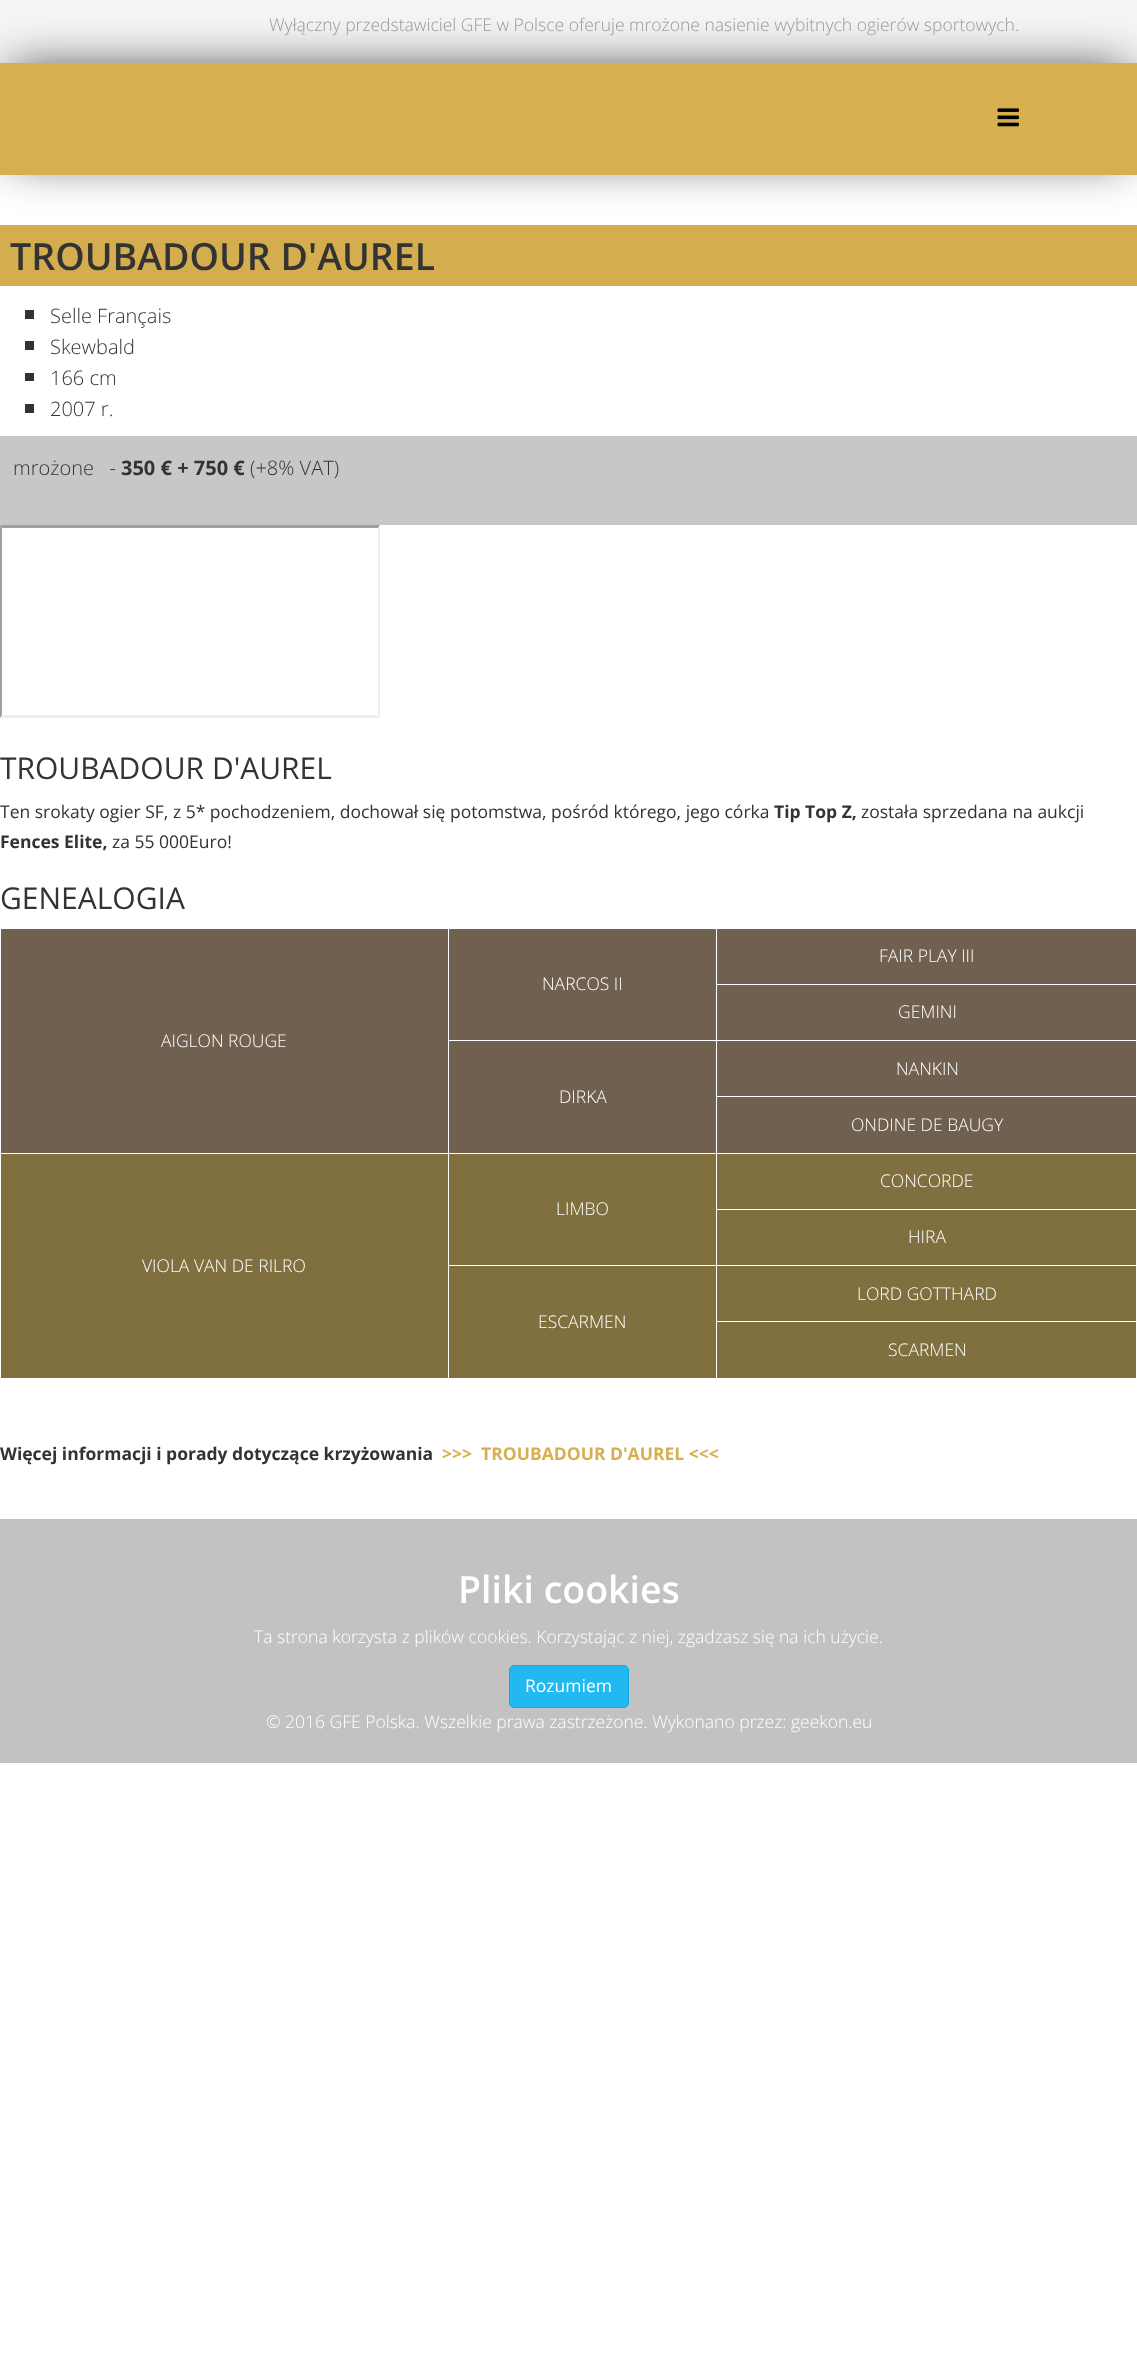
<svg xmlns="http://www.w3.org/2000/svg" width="1137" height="2364">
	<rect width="100%" height="100%" fill="#FFFFFF" />
	<rect x="0" y="0" width="1137" height="63" fill="#F5F5F5" />
	<rect x="0" y="225" width="1137" height="61" fill="#D4AD4E" />
	<rect x="11" y="69" width="1115" height="90" fill="#000000" fill-opacity="0.75" filter="blur(24px)" />
	<rect x="0" y="63" width="1137" height="112" fill="#D7AF4F" />
	<image x="997" y="108" width="22" height="19" href="assets/img1.png" />
	<text x="269" y="31" font-family="Open Sans" font-size="17.5" font-weight="300" fill="#999999">Wyłączny przedstawiciel GFE w Polsce oferuje mrożone nasienie wybitnych ogierów sportowych.</text>
	<text x="10" y="270" font-family="Open Sans" font-size="37.5" font-weight="600" fill="#333333">TROUBADOUR D'AUREL</text>
	<rect x="25" y="310" width="9" height="9" fill="#333333" />
	<text x="50" y="323" font-family="Open Sans" font-size="20" font-weight="300" fill="#333333">Selle Français</text>
	<rect x="25" y="341" width="9" height="9" fill="#333333" />
	<text x="50" y="354" font-family="Open Sans" font-size="20" font-weight="300" fill="#333333">Skewbald</text>
	<rect x="25" y="373" width="9" height="8" fill="#333333" />
	<text x="50" y="385" font-family="Open Sans" font-size="20" font-weight="300" fill="#333333">166 cm</text>
	<rect x="25" y="404" width="9" height="9" fill="#333333" />
	<text x="50" y="416" font-family="Open Sans" font-size="20" font-weight="300" fill="#333333">2007 r.</text>
	<rect x="0" y="436" width="1137" height="89" fill="#C7C7C7" />
	<text x="13" y="475" font-family="Open Sans" font-size="20" font-weight="300" fill="#333333" xml:space="preserve">mrożone   -</text>
	<text x="121" y="475" font-family="Open Sans" font-size="20" font-weight="700" fill="#333333">350 € + 750 €</text>
	<text x="250" y="475" font-family="Open Sans" font-size="20" font-weight="300" fill="#333333">(+8% VAT)</text>
	<path d="M0 525H380L378 528H2Z" fill="#9F9F9F" />
	<path d="M380 525V718L378 715V528Z" fill="#EEEEEE" />
	<path d="M380 718H0L2 715H378Z" fill="#EEEEEE" />
	<path d="M0 718V525L2 528V715Z" fill="#9F9F9F" />
	<text x="0" y="779" font-family="Open Sans" font-size="30" fill="#333333">TROUBADOUR D'AUREL</text>
	<text x="0" y="818" font-family="Open Sans" font-size="17.5" fill="#333333">Ten srokaty ogier SF, z 5* pochodzeniem, dochował się potomstwa, pośród którego, jego córka</text>
	<text x="774" y="818" font-family="Open Sans" font-size="17.5" font-weight="700" fill="#333333">Tip Top Z,</text>
	<text x="861" y="818" font-family="Open Sans" font-size="17.5" fill="#333333">została sprzedana na aukcji</text>
	<text x="0" y="848" font-family="Open Sans" font-size="17.5" font-weight="700" fill="#333333">Fences Elite,</text>
	<text x="112" y="848" font-family="Open Sans" font-size="17.5" fill="#333333">za 55 000Euro!</text>
	<text x="0" y="909" font-family="Open Sans" font-size="30" fill="#333333">GENEALOGIA</text>
	<rect x="1" y="929" width="1135" height="224" fill="#706050" />
	<g font-family="Open Sans" font-size="17.5" font-weight="300" fill="#FFFFFF">
		<text x="879" y="962">FAIR PLAY III</text>
		<text x="542" y="990">NARCOS II</text>
		<text x="161" y="1047">AIGLON ROUGE</text>
	</g>
	<rect x="716" y="984" width="421" height="1" fill="#FFFFFF" />
	<rect x="716" y="1040" width="421" height="1" fill="#FFFFFF" />
	<rect x="716" y="1096" width="421" height="1" fill="#FFFFFF" />
	<rect x="1" y="1154" width="1135" height="224" fill="#807040" />
	<rect x="716" y="1209" width="421" height="1" fill="#FFFFFF" />
	<rect x="716" y="1265" width="421" height="1" fill="#FFFFFF" />
	<rect x="716" y="1321" width="421" height="1" fill="#FFFFFF" />
	<rect x="716" y="1321" width="1" height="58" fill="#FFFFFF" />
	<rect x="716" y="1265" width="1" height="58" fill="#FFFFFF" />
	<rect x="448" y="1265" width="270" height="1" fill="#FFFFFF" />
	<rect x="716" y="1153" width="1" height="113" fill="#FFFFFF" />
	<rect x="716" y="1096" width="1" height="58" fill="#FFFFFF" />
	<rect x="716" y="1040" width="1" height="58" fill="#FFFFFF" />
	<rect x="448" y="1040" width="270" height="1" fill="#FFFFFF" />
	<rect x="716" y="928" width="1" height="113" fill="#FFFFFF" />
	<g font-family="Open Sans" font-size="17.5" font-weight="300" fill="#FFFFFF">
		<text x="898" y="1018">GEMINI</text>
		<text x="896" y="1075">NANKIN</text>
	</g>
	<rect x="448" y="1153" width="1" height="226" fill="#FFFFFF" />
	<rect x="448" y="928" width="1" height="226" fill="#FFFFFF" />
	<g font-family="Open Sans" font-size="17.5" font-weight="300" fill="#FFFFFF">
		<text x="559" y="1103">DIRKA</text>
		<text x="851" y="1131">ONDINE DE BAUGY</text>
		<text x="880" y="1187">CONCORDE</text>
		<text x="556" y="1215">LIMBO</text>
		<text x="142" y="1272">VIOLA VAN DE RILRO</text>
		<text x="908" y="1243">HIRA</text>
		<text x="857" y="1300">LORD GOTTHARD</text>
		<text x="538" y="1328">ESCARMEN</text>
		<text x="888" y="1356">SCARMEN</text>
	</g>
	<text x="0" y="1460" font-family="Open Sans" font-size="17.5" font-weight="700" fill="#333333">Więcej informacji i porady dotyczące krzyżowania</text>
	<text x="442" y="1460" font-family="Open Sans" font-size="17.5" font-weight="700" fill="#D7AF4F" xml:space="preserve">&gt;&gt;&gt;  TROUBADOUR D'AUREL &lt;&lt;&lt;</text>
	<rect x="0" y="1519" width="1137" height="244" fill="#C2C2C2" />
	<text x="458" y="1603" font-family="Open Sans" font-size="37.5" font-weight="600" fill="#FFFFFF">Pliki cookies</text>
	<text x="254" y="1643" font-family="Open Sans" font-size="17.5" font-weight="300" fill="#FFFFFF">Ta strona korzysta z plików cookies. Korzystając z niej, zgadzasz się na ich użycie.</text>
	<rect x="509.5" y="1665.5" width="119" height="42" rx="4.5" fill="#22B8F0" stroke="#0FAAE4" />
	<text x="525" y="1692" font-family="Open Sans" font-size="17.5" fill="#FFFFFF">Rozumiem</text>
	<text x="266" y="1728" font-family="Open Sans" font-size="17.5" font-weight="300" fill="#FFFFFF">© 2016 GFE Polska. Wszelkie prawa zastrzeżone. Wykonano przez: geekon.eu</text>
</svg>
